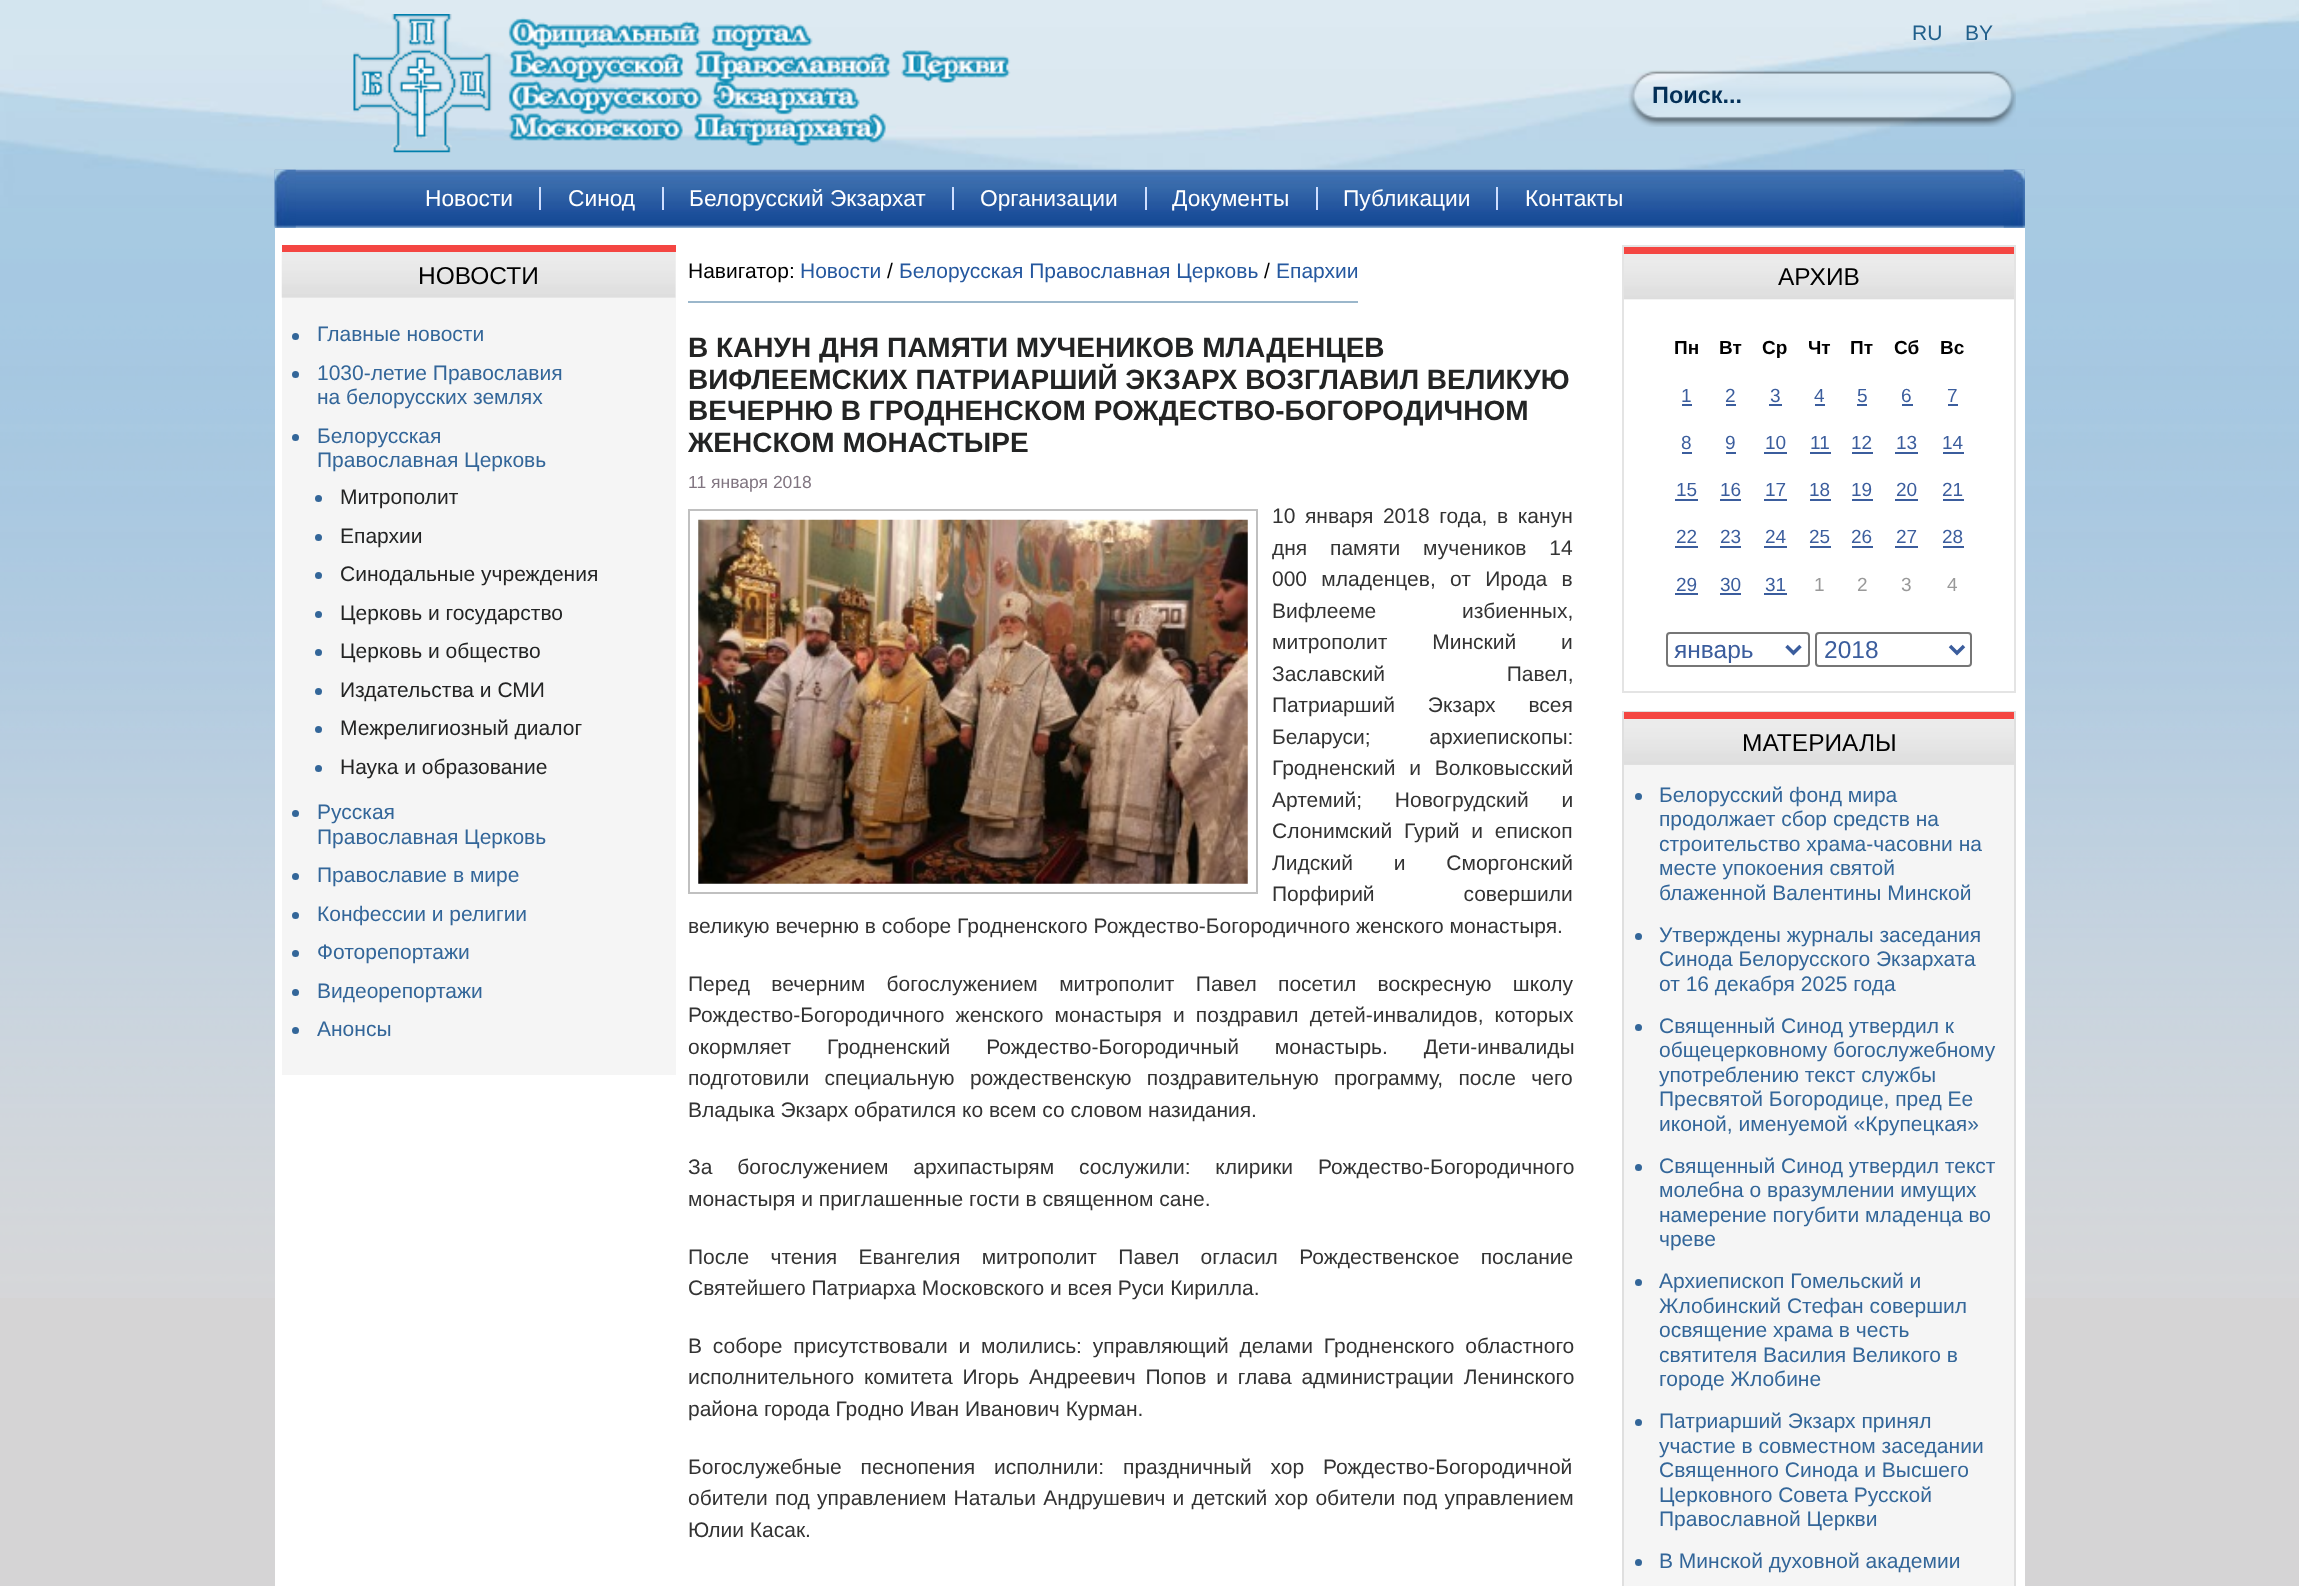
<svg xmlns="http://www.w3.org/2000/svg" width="2299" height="1586">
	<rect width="100%" height="100%" fill="#D5D4D5" />
	<image x="0" y="206" width="2299" height="1092" href="assets/img1.png" />
	<image x="0" y="0" width="2299" height="207" href="assets/img2.png" />
	<image x="353" y="14" width="658" height="139" href="assets/img3.png" />
	<g font-family="Liberation Sans" font-size="21" fill="#21608C">
		<text x="1912" y="40">RU</text>
		<text x="1965" y="40">BY</text>
	</g>
	<image x="1628" y="70" width="388" height="57" href="assets/img4.png" />
	<text x="1652" y="103" font-family="Liberation Sans" font-size="23.5" font-weight="700" fill="#032F57">Поиск...</text>
	<image x="274" y="169" width="1751" height="59" href="assets/img5.png" />
	<image x="274" y="169" width="22" height="59" href="assets/img6.png" />
	<rect x="539" y="187" width="2" height="23" fill="#CFDEFF" />
	<text x="425" y="206" font-family="Liberation Sans" font-size="22.75" fill="#FFFFFF">Новости</text>
	<rect x="662" y="187" width="2" height="23" fill="#CFDEFF" />
	<text x="568" y="206" font-family="Liberation Sans" font-size="22.75" fill="#FFFFFF">Синод</text>
	<rect x="952" y="187" width="2" height="23" fill="#CFDEFF" />
	<text x="689" y="206" font-family="Liberation Sans" font-size="22.75" fill="#FFFFFF">Белорусский Экзархат</text>
	<rect x="1145" y="187" width="2" height="23" fill="#CFDEFF" />
	<text x="980" y="206" font-family="Liberation Sans" font-size="22.75" fill="#FFFFFF">Организации</text>
	<rect x="1316" y="187" width="2" height="23" fill="#CFDEFF" />
	<text x="1172" y="206" font-family="Liberation Sans" font-size="22.75" fill="#FFFFFF">Документы</text>
	<rect x="1496" y="187" width="2" height="23" fill="#CFDEFF" />
	<g font-family="Liberation Sans" font-size="22.75" fill="#FFFFFF">
		<text x="1343" y="206">Публикации</text>
		<text x="1525" y="206">Контакты</text>
	</g>
	<image x="2003" y="169" width="22" height="59" href="assets/img7.png" />
	<rect x="275" y="228" width="1750" height="1358" fill="#FFFFFF" />
	<rect x="282" y="252" width="394" height="823" fill="#F5F5F5" />
	<rect x="282" y="245" width="394" height="7" fill="#F44642" />
	<image x="281" y="252" width="395" height="46" href="assets/img8.png" />
	<text x="418" y="284" font-family="Liberation Sans" font-size="24.5" fill="#000000">НОВОСТИ</text>
	<circle cx="295.5" cy="336.5" r="3.5" fill="#336699" />
	<text x="317" y="341" font-family="Liberation Sans" font-size="21" fill="#336699">Главные новости</text>
	<circle cx="295.5" cy="374.5" r="3.5" fill="#336699" />
	<g font-family="Liberation Sans" font-size="21" fill="#336699">
		<text x="317" y="380">1030-летие Православия</text>
		<text x="317" y="404">на белорусских землях</text>
	</g>
	<circle cx="295.5" cy="437.5" r="3.5" fill="#336699" />
	<g font-family="Liberation Sans" font-size="21" fill="#336699">
		<text x="317" y="443">Белорусская</text>
		<text x="317" y="467">Православная Церковь</text>
	</g>
	<circle cx="318.5" cy="498.5" r="3.5" fill="#336699" />
	<text x="340" y="504" font-family="Liberation Sans" font-size="21" fill="#232424">Митрополит</text>
	<circle cx="318.5" cy="537.5" r="3.5" fill="#336699" />
	<text x="340" y="543" font-family="Liberation Sans" font-size="21" fill="#232424">Епархии</text>
	<circle cx="318.5" cy="575.5" r="3.5" fill="#336699" />
	<text x="340" y="581" font-family="Liberation Sans" font-size="21" fill="#232424">Синодальные учреждения</text>
	<circle cx="318.5" cy="614.5" r="3.5" fill="#336699" />
	<text x="340" y="620" font-family="Liberation Sans" font-size="21" fill="#232424">Церковь и государство</text>
	<circle cx="318.5" cy="652.5" r="3.5" fill="#336699" />
	<text x="340" y="658" font-family="Liberation Sans" font-size="21" fill="#232424">Церковь и общество</text>
	<circle cx="318.5" cy="691.5" r="3.5" fill="#336699" />
	<text x="340" y="697" font-family="Liberation Sans" font-size="21" fill="#232424">Издательства и СМИ</text>
	<circle cx="318.5" cy="729.5" r="3.5" fill="#336699" />
	<text x="340" y="735" font-family="Liberation Sans" font-size="21" fill="#232424">Межрелигиозный диалог</text>
	<circle cx="318.5" cy="768.5" r="3.5" fill="#336699" />
	<text x="340" y="774" font-family="Liberation Sans" font-size="21" fill="#232424">Наука и образование</text>
	<circle cx="295.5" cy="813.5" r="3.5" fill="#336699" />
	<g font-family="Liberation Sans" font-size="21" fill="#336699">
		<text x="317" y="819">Русская</text>
		<text x="317" y="844">Православная Церковь</text>
	</g>
	<circle cx="295.5" cy="876.5" r="3.5" fill="#336699" />
	<text x="317" y="882" font-family="Liberation Sans" font-size="21" fill="#336699">Православие в мире</text>
	<circle cx="295.5" cy="915.5" r="3.5" fill="#336699" />
	<text x="317" y="921" font-family="Liberation Sans" font-size="21" fill="#336699">Конфессии и религии</text>
	<circle cx="295.5" cy="953.5" r="3.5" fill="#336699" />
	<text x="317" y="959" font-family="Liberation Sans" font-size="21" fill="#336699">Фоторепортажи</text>
	<circle cx="295.5" cy="992.5" r="3.5" fill="#336699" />
	<text x="317" y="998" font-family="Liberation Sans" font-size="21" fill="#336699">Видеорепортажи</text>
	<circle cx="295.5" cy="1030.5" r="3.5" fill="#336699" />
	<text x="317" y="1036" font-family="Liberation Sans" font-size="21" fill="#336699">Анонсы</text>
	<text x="688" y="278" font-family="Liberation Sans" font-size="21" fill="#000000">Навигатор:</text>
	<rect x="688" y="301" width="670" height="2" fill="#9BB7CB" />
	<text x="800" y="278" font-family="Liberation Sans" font-size="21" fill="#25589F">Новости</text>
	<text x="887" y="278" font-family="Liberation Sans" font-size="21" fill="#000000">/</text>
	<text x="899" y="278" font-family="Liberation Sans" font-size="21" fill="#25589F">Белорусская Православная Церковь</text>
	<text x="1264" y="278" font-family="Liberation Sans" font-size="21" fill="#000000">/</text>
	<text x="1276" y="278" font-family="Liberation Sans" font-size="21" fill="#25589F">Епархии</text>
	<g font-family="Liberation Sans" font-size="28" font-weight="700" fill="#232424">
		<text x="688" y="357">В КАНУН ДНЯ ПАМЯТИ МУЧЕНИКОВ МЛАДЕНЦЕВ</text>
		<text x="688" y="389">ВИФЛЕЕМСКИХ ПАТРИАРШИЙ ЭКЗАРХ ВОЗГЛАВИЛ ВЕЛИКУЮ</text>
		<text x="688" y="420">ВЕЧЕРНЮ В ГРОДНЕНСКОМ РОЖДЕСТВО-БОГОРОДИЧНОМ</text>
		<text x="688" y="452">ЖЕНСКОМ МОНАСТЫРЕ</text>
	</g>
	<text x="688" y="488" font-family="Liberation Sans" font-size="17.5" fill="#807580">11 января 2018</text>
	<rect x="689" y="510" width="568" height="383" fill="none" stroke="#C0C0C0" stroke-width="2" />
	<image x="698" y="519" width="550" height="365" href="assets/img9.png" />
	<g font-family="Liberation Sans" font-size="21" fill="#333333">
		<text x="1272" y="523" word-spacing="3.75">10 января 2018 года, в канун</text>
		<text x="1272" y="555" word-spacing="17">дня памяти мучеников 14</text>
		<text x="1272" y="586" word-spacing="8.5">000 младенцев, от Ирода в</text>
		<text x="1272" y="618" word-spacing="80">Вифлееме избиенных,</text>
		<text x="1272" y="649" word-spacing="39">митрополит Минский и</text>
		<text x="1272" y="681" word-spacing="116">Заславский Павел,</text>
		<text x="1272" y="712" word-spacing="27">Патриарший Экзарх всея</text>
		<text x="1272" y="744" word-spacing="53">Беларуси; архиепископы:</text>
		<text x="1272" y="775" word-spacing="8">Гродненский и Волковысский</text>
		<text x="1272" y="807" word-spacing="27">Артемий; Новогрудский и</text>
		<text x="1272" y="838" word-spacing="6">Слонимский Гурий и епископ</text>
		<text x="1272" y="870" word-spacing="35">Лидский и Сморгонский</text>
		<text x="1272" y="901" word-spacing="83">Порфирий совершили</text>
		<text x="688" y="933">великую вечерню в соборе Гродненского Рождество-Богородичного женского монастыря.</text>
		<text x="688" y="991" word-spacing="15.5">Перед вечерним богослужением митрополит Павел посетил воскресную школу</text>
		<text x="688" y="1022" word-spacing="5.25">Рождество-Богородичного женского монастыря и поздравил детей-инвалидов, которых</text>
		<text x="688" y="1054" word-spacing="30">окормляет Гродненский Рождество-Богородичный монастырь. Дети-инвалиды</text>
		<text x="688" y="1085" word-spacing="9.5">подготовили специальную рождественскую поздравительную программу, после чего</text>
		<text x="688" y="1117">Владыка Экзарх обратился ко всем со словом назидания.</text>
		<text x="688" y="1174" word-spacing="19">За богослужением архипастырям сослужили: клирики Рождество-Богородичного</text>
		<text x="688" y="1206">монастыря и приглашенные гости в священном сане.</text>
		<text x="688" y="1264" word-spacing="15.5">После чтения Евангелия митрополит Павел огласил Рождественское послание</text>
		<text x="688" y="1295">Святейшего Патриарха Московского и всея Руси Кирилла.</text>
		<text x="688" y="1353" word-spacing="5">В соборе присутствовали и молились: управляющий делами Гродненского областного</text>
		<text x="688" y="1384" word-spacing="4">исполнительного комитета Игорь Андреевич Попов и глава администрации Ленинского</text>
		<text x="688" y="1416">района города Гродно Иван Иванович Курман.</text>
		<text x="688" y="1474" word-spacing="13">Богослужебные песнопения исполнили: праздничный хор Рождество-Богородичной</text>
		<text x="688" y="1505" word-spacing="1.4">обители под управлением Натальи Андрушевич и детский хор обители под управлением</text>
		<text x="688" y="1537">Юлии Касак.</text>
	</g>
	<rect x="1623" y="246" width="392" height="446" fill="none" stroke="#E4E4E4" stroke-width="2" />
	<image x="1624" y="254" width="390" height="46" href="assets/img10.png" />
	<rect x="1624" y="247" width="390" height="7" fill="#F44642" />
	<text x="1778" y="285" font-family="Liberation Sans" font-size="24.5" fill="#000000">АРХИВ</text>
	<g font-family="Liberation Sans" font-size="19" font-weight="700" fill="#000000">
		<text x="1674" y="354">Пн</text>
		<text x="1719" y="354">Вт</text>
		<text x="1762" y="354">Ср</text>
		<text x="1808" y="354">Чт</text>
		<text x="1850" y="354">Пт</text>
		<text x="1894" y="354">Сб</text>
		<text x="1940" y="354">Вс</text>
	</g>
	<text x="1681" y="402" font-family="Liberation Sans" font-size="19" fill="#3B5D9D">1</text>
	<rect x="1682" y="404" width="10" height="2" fill="#3B5D9D" />
	<text x="1725" y="402" font-family="Liberation Sans" font-size="19" fill="#3B5D9D">2</text>
	<rect x="1726" y="404" width="10" height="2" fill="#3B5D9D" />
	<text x="1770" y="402" font-family="Liberation Sans" font-size="19" fill="#3B5D9D">3</text>
	<rect x="1769" y="404" width="13" height="2" fill="#3B5D9D" />
	<text x="1814" y="402" font-family="Liberation Sans" font-size="19" fill="#3B5D9D">4</text>
	<rect x="1815" y="404" width="10" height="2" fill="#3B5D9D" />
	<text x="1857" y="402" font-family="Liberation Sans" font-size="19" fill="#3B5D9D">5</text>
	<rect x="1857" y="404" width="10" height="2" fill="#3B5D9D" />
	<text x="1901" y="402" font-family="Liberation Sans" font-size="19" fill="#3B5D9D">6</text>
	<rect x="1902" y="404" width="11" height="2" fill="#3B5D9D" />
	<text x="1947" y="402" font-family="Liberation Sans" font-size="19" fill="#3B5D9D">7</text>
	<rect x="1948" y="404" width="10" height="2" fill="#3B5D9D" />
	<text x="1681" y="449" font-family="Liberation Sans" font-size="19" fill="#3B5D9D">8</text>
	<rect x="1682" y="452" width="10" height="2" fill="#3B5D9D" />
	<text x="1725" y="449" font-family="Liberation Sans" font-size="19" fill="#3B5D9D">9</text>
	<rect x="1726" y="452" width="10" height="2" fill="#3B5D9D" />
	<text x="1765" y="449" font-family="Liberation Sans" font-size="19" fill="#3B5D9D">10</text>
	<rect x="1764" y="452" width="23" height="2" fill="#3B5D9D" />
	<text x="1810" y="449" font-family="Liberation Sans" font-size="19" fill="#3B5D9D">11</text>
	<rect x="1810" y="452" width="21" height="2" fill="#3B5D9D" />
	<text x="1851" y="449" font-family="Liberation Sans" font-size="19" fill="#3B5D9D">12</text>
	<rect x="1852" y="452" width="21" height="2" fill="#3B5D9D" />
	<text x="1896" y="449" font-family="Liberation Sans" font-size="19" fill="#3B5D9D">13</text>
	<rect x="1895" y="452" width="23" height="2" fill="#3B5D9D" />
	<text x="1942" y="449" font-family="Liberation Sans" font-size="19" fill="#3B5D9D">14</text>
	<rect x="1943" y="452" width="21" height="2" fill="#3B5D9D" />
	<text x="1676" y="496" font-family="Liberation Sans" font-size="19" fill="#3B5D9D">15</text>
	<rect x="1675" y="499" width="23" height="2" fill="#3B5D9D" />
	<text x="1720" y="496" font-family="Liberation Sans" font-size="19" fill="#3B5D9D">16</text>
	<rect x="1720" y="499" width="21" height="2" fill="#3B5D9D" />
	<text x="1765" y="496" font-family="Liberation Sans" font-size="19" fill="#3B5D9D">17</text>
	<rect x="1764" y="499" width="23" height="2" fill="#3B5D9D" />
	<text x="1809" y="496" font-family="Liberation Sans" font-size="19" fill="#3B5D9D">18</text>
	<rect x="1810" y="499" width="21" height="2" fill="#3B5D9D" />
	<text x="1851" y="496" font-family="Liberation Sans" font-size="19" fill="#3B5D9D">19</text>
	<rect x="1852" y="499" width="21" height="2" fill="#3B5D9D" />
	<text x="1896" y="496" font-family="Liberation Sans" font-size="19" fill="#3B5D9D">20</text>
	<rect x="1895" y="499" width="23" height="2" fill="#3B5D9D" />
	<text x="1942" y="496" font-family="Liberation Sans" font-size="19" fill="#3B5D9D">21</text>
	<rect x="1943" y="499" width="21" height="2" fill="#3B5D9D" />
	<text x="1676" y="543" font-family="Liberation Sans" font-size="19" fill="#3B5D9D">22</text>
	<rect x="1675" y="546" width="23" height="2" fill="#3B5D9D" />
	<text x="1720" y="543" font-family="Liberation Sans" font-size="19" fill="#3B5D9D">23</text>
	<rect x="1720" y="546" width="21" height="2" fill="#3B5D9D" />
	<text x="1765" y="543" font-family="Liberation Sans" font-size="19" fill="#3B5D9D">24</text>
	<rect x="1764" y="546" width="23" height="2" fill="#3B5D9D" />
	<text x="1809" y="543" font-family="Liberation Sans" font-size="19" fill="#3B5D9D">25</text>
	<rect x="1810" y="546" width="21" height="2" fill="#3B5D9D" />
	<text x="1851" y="543" font-family="Liberation Sans" font-size="19" fill="#3B5D9D">26</text>
	<rect x="1852" y="546" width="21" height="2" fill="#3B5D9D" />
	<text x="1896" y="543" font-family="Liberation Sans" font-size="19" fill="#3B5D9D">27</text>
	<rect x="1895" y="546" width="23" height="2" fill="#3B5D9D" />
	<text x="1942" y="543" font-family="Liberation Sans" font-size="19" fill="#3B5D9D">28</text>
	<rect x="1943" y="546" width="21" height="2" fill="#3B5D9D" />
	<text x="1676" y="591" font-family="Liberation Sans" font-size="19" fill="#3B5D9D">29</text>
	<rect x="1675" y="593" width="23" height="2" fill="#3B5D9D" />
	<text x="1720" y="591" font-family="Liberation Sans" font-size="19" fill="#3B5D9D">30</text>
	<rect x="1720" y="593" width="21" height="2" fill="#3B5D9D" />
	<text x="1765" y="591" font-family="Liberation Sans" font-size="19" fill="#3B5D9D">31</text>
	<rect x="1764" y="593" width="23" height="2" fill="#3B5D9D" />
	<g font-family="Liberation Sans" font-size="19" fill="#999999">
		<text x="1814" y="591">1</text>
		<text x="1857" y="591">2</text>
		<text x="1901" y="591">3</text>
		<text x="1947" y="591">4</text>
	</g>
	<rect x="1667" y="633" width="142" height="33" rx="3" fill="none" stroke="#767676" stroke-width="2" />
	<path d="M1786.5 646L1793.5 653L1800.5 646" fill="none" stroke="#3B5D9D" stroke-width="3.5" />
	<text x="1674" y="658" font-family="Liberation Sans" font-size="24.5" fill="#3B5D9D">январь</text>
	<rect x="1816" y="633" width="155" height="33" rx="3" fill="none" stroke="#767676" stroke-width="2" />
	<path d="M1950 646L1957 653L1964 646" fill="none" stroke="#3B5D9D" stroke-width="3.5" />
	<text x="1824" y="658" font-family="Liberation Sans" font-size="24.5" fill="#3B5D9D">2018</text>
	<rect x="1624" y="719" width="390" height="867" fill="#F5F5F5" />
	<rect x="1623" y="712" width="392" height="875" fill="none" stroke="#DFDFDF" stroke-width="2" />
	<image x="1624" y="719" width="390" height="46" href="assets/img11.png" />
	<rect x="1624" y="712" width="390" height="7" fill="#F44642" />
	<text x="1742" y="751" font-family="Liberation Sans" font-size="24.5" fill="#000000">МАТЕРИАЛЫ</text>
	<circle cx="1638.5" cy="796.5" r="3.5" fill="#336699" />
	<g font-family="Liberation Sans" font-size="21" fill="#336699">
		<text x="1659" y="802">Белорусский фонд мира</text>
		<text x="1659" y="826">продолжает сбор средств на</text>
		<text x="1659" y="851">строительство храма-часовни на</text>
		<text x="1659" y="875">месте упокоения святой</text>
		<text x="1659" y="900">блаженной Валентины Минской</text>
	</g>
	<circle cx="1638.5" cy="936.5" r="3.5" fill="#336699" />
	<g font-family="Liberation Sans" font-size="21" fill="#336699">
		<text x="1659" y="942">Утверждены журналы заседания</text>
		<text x="1659" y="966">Синода Белорусского Экзархата</text>
		<text x="1659" y="991">от 16 декабря 2025 года</text>
	</g>
	<circle cx="1638.5" cy="1027.5" r="3.5" fill="#336699" />
	<g font-family="Liberation Sans" font-size="21" fill="#336699">
		<text x="1659" y="1033">Священный Синод утвердил к</text>
		<text x="1659" y="1057">общецерковному богослужебному</text>
		<text x="1659" y="1082">употреблению текст службы</text>
		<text x="1659" y="1106">Пресвятой Богородице, пред Ее</text>
		<text x="1659" y="1131">иконой, именуемой «Крупецкая»</text>
	</g>
	<circle cx="1638.5" cy="1167.5" r="3.5" fill="#336699" />
	<g font-family="Liberation Sans" font-size="21" fill="#336699">
		<text x="1659" y="1173">Священный Синод утвердил текст</text>
		<text x="1659" y="1197">молебна о вразумлении имущих</text>
		<text x="1659" y="1222">намерение погубити младенца во</text>
		<text x="1659" y="1246">чреве</text>
	</g>
	<circle cx="1638.5" cy="1282.5" r="3.5" fill="#336699" />
	<g font-family="Liberation Sans" font-size="21" fill="#336699">
		<text x="1659" y="1288">Архиепископ Гомельский и</text>
		<text x="1659" y="1313">Жлобинский Стефан совершил</text>
		<text x="1659" y="1337">освящение храма в честь</text>
		<text x="1659" y="1362">святителя Василия Великого в</text>
		<text x="1659" y="1386">городе Жлобине</text>
	</g>
	<circle cx="1638.5" cy="1422.5" r="3.5" fill="#336699" />
	<g font-family="Liberation Sans" font-size="21" fill="#336699">
		<text x="1659" y="1428">Патриарший Экзарх принял</text>
		<text x="1659" y="1453">участие в совместном заседании</text>
		<text x="1659" y="1477">Священного Синода и Высшего</text>
		<text x="1659" y="1502">Церковного Совета Русской</text>
		<text x="1659" y="1526">Православной Церкви</text>
	</g>
	<circle cx="1638.5" cy="1562.5" r="3.5" fill="#336699" />
	<text x="1659" y="1568" font-family="Liberation Sans" font-size="21" fill="#336699">В Минской духовной академии</text>
</svg>
